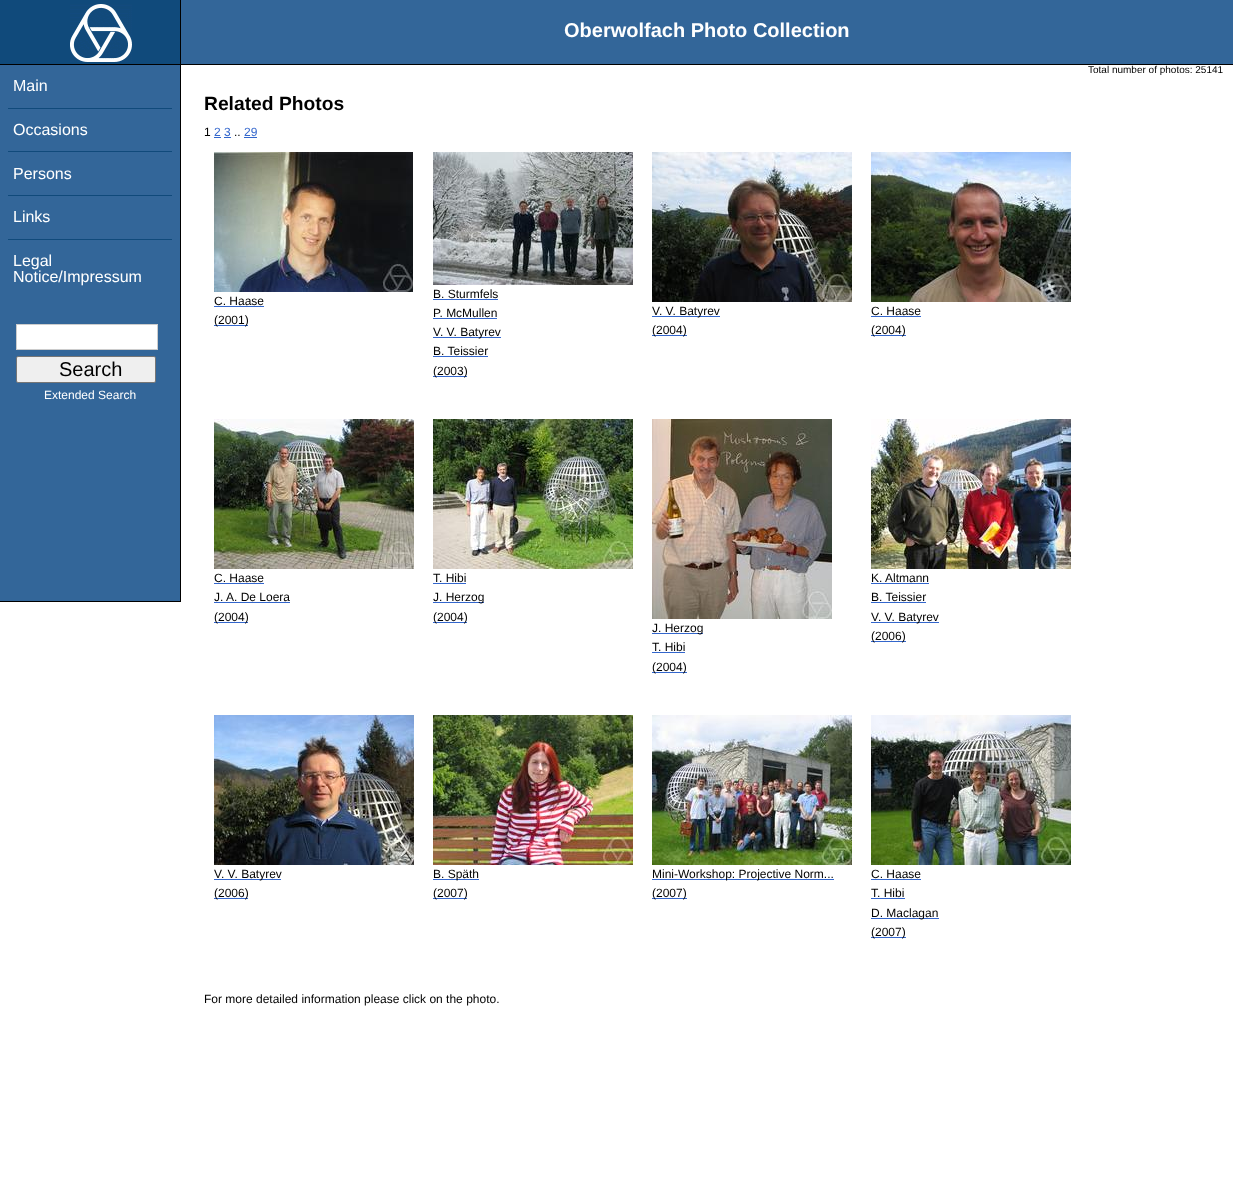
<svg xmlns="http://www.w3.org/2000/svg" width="1233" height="1181">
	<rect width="100%" height="100%" fill="#FFFFFF" />
	<rect x="181" y="0" width="1052" height="64" fill="#336699" />
	<rect x="0" y="64" width="1233" height="1" fill="#000000" />
	<rect x="0" y="0" width="180" height="64" fill="#104A7B" />
	<rect x="180" y="0" width="1" height="64" fill="#000000" />
	<image x="70" y="4" width="62" height="58" href="assets/img1.png" />
	<text x="564" y="37" font-family="Liberation Sans" font-size="20" font-weight="700" fill="#FFFFFF">Oberwolfach Photo Collection</text>
	<text x="1088" y="73" font-family="Liberation Sans" font-size="10" fill="#000000">Total number of photos: 25141</text>
	<rect x="0" y="65" width="180" height="536" fill="#336699" />
	<rect x="180" y="65" width="1" height="537" fill="#000000" />
	<rect x="0" y="601" width="181" height="1" fill="#000000" />
	<text x="13" y="91" font-family="Liberation Sans" font-size="16" fill="#FFFFFF">Main</text>
	<rect x="8" y="108" width="164" height="1" fill="#104A7B" />
	<text x="13" y="135" font-family="Liberation Sans" font-size="16" fill="#FFFFFF">Occasions</text>
	<rect x="8" y="151" width="164" height="1" fill="#104A7B" />
	<text x="13" y="179" font-family="Liberation Sans" font-size="16" fill="#FFFFFF">Persons</text>
	<rect x="8" y="195" width="164" height="1" fill="#104A7B" />
	<text x="13" y="222" font-family="Liberation Sans" font-size="16" fill="#FFFFFF">Links</text>
	<rect x="8" y="239" width="164" height="1" fill="#104A7B" />
	<g font-family="Liberation Sans" font-size="16" fill="#FFFFFF">
		<text x="13" y="266">Legal</text>
		<text x="13" y="282">Notice/Impressum</text>
	</g>
	<rect x="16.5" y="324.5" width="141" height="25" fill="#FFFFFF" stroke="#CCCCCC" />
	<rect x="16.5" y="356.5" width="139" height="26" rx="1.5" fill="#EFEFEF" stroke="#767676" />
	<text x="59" y="376" font-family="Liberation Sans" font-size="20" fill="#000000">Search</text>
	<text x="44" y="399" font-family="Liberation Sans" font-size="12" fill="#FFFFFF">Extended Search</text>
	<text x="204" y="110" font-family="Liberation Sans" font-size="19.25" font-weight="700" fill="#000000">Related Photos</text>
	<text x="204" y="136" font-family="Liberation Sans" font-size="12" fill="#000000">1</text>
	<text x="214" y="136" font-family="Liberation Sans" font-size="12" fill="#3366CC">2 3</text>
	<rect x="214" y="137" width="7" height="1" fill="#3366CC" />
	<text x="234" y="136" font-family="Liberation Sans" font-size="12" fill="#000000">..</text>
	<text x="244" y="136" font-family="Liberation Sans" font-size="12" fill="#3366CC">29</text>
	<rect x="244" y="137" width="13" height="1" fill="#3366CC" />
	<rect x="224" y="137" width="7" height="1" fill="#3366CC" />
	<image x="214" y="152" width="199" height="140" href="assets/img2.png" />
	<text x="214" y="305" font-family="Liberation Sans" font-size="12" fill="#000000">C. Haase</text>
	<rect x="214" y="306" width="50" height="1" fill="#3366CC" />
	<rect x="214" y="325" width="34" height="1" fill="#3366CC" />
	<text x="214" y="324" font-family="Liberation Sans" font-size="12" fill="#000000">(2001)</text>
	<image x="433" y="152" width="200" height="133" href="assets/img3.png" />
	<text x="433" y="298" font-family="Liberation Sans" font-size="12" fill="#000000">B. Sturmfels</text>
	<rect x="433" y="299" width="65" height="1" fill="#3366CC" />
	<text x="433" y="317" font-family="Liberation Sans" font-size="12" fill="#000000">P. McMullen</text>
	<rect x="433" y="318" width="64" height="1" fill="#3366CC" />
	<rect x="433" y="337" width="68" height="1" fill="#3366CC" />
	<g font-family="Liberation Sans" font-size="12" fill="#000000">
		<text x="433" y="336">V. V. Batyrev</text>
		<text x="433" y="355">B. Teissier</text>
	</g>
	<rect x="433" y="356" width="55" height="1" fill="#3366CC" />
	<rect x="433" y="376" width="34" height="1" fill="#3366CC" />
	<text x="433" y="375" font-family="Liberation Sans" font-size="12" fill="#000000">(2003)</text>
	<image x="652" y="152" width="200" height="150" href="assets/img4.png" />
	<rect x="652" y="316" width="68" height="1" fill="#3366CC" />
	<text x="652" y="315" font-family="Liberation Sans" font-size="12" fill="#000000">V. V. Batyrev</text>
	<rect x="652" y="335" width="35" height="1" fill="#3366CC" />
	<text x="652" y="334" font-family="Liberation Sans" font-size="12" fill="#000000">(2004)</text>
	<image x="871" y="152" width="200" height="150" href="assets/img5.png" />
	<text x="871" y="315" font-family="Liberation Sans" font-size="12" fill="#000000">C. Haase</text>
	<rect x="871" y="316" width="50" height="1" fill="#3366CC" />
	<rect x="871" y="335" width="35" height="1" fill="#3366CC" />
	<text x="871" y="334" font-family="Liberation Sans" font-size="12" fill="#000000">(2004)</text>
	<image x="214" y="419" width="200" height="150" href="assets/img6.png" />
	<text x="214" y="582" font-family="Liberation Sans" font-size="12" fill="#000000">C. Haase</text>
	<rect x="214" y="583" width="50" height="1" fill="#3366CC" />
	<text x="214" y="601" font-family="Liberation Sans" font-size="12" fill="#000000">J. A. De Loera</text>
	<rect x="214" y="602" width="76" height="1" fill="#3366CC" />
	<rect x="214" y="622" width="34" height="1" fill="#3366CC" />
	<text x="214" y="621" font-family="Liberation Sans" font-size="12" fill="#000000">(2004)</text>
	<image x="433" y="419" width="200" height="150" href="assets/img7.png" />
	<text x="433" y="582" font-family="Liberation Sans" font-size="12" fill="#000000">T. Hibi</text>
	<rect x="433" y="583" width="33" height="1" fill="#3366CC" />
	<rect x="433" y="602" width="51" height="1" fill="#3366CC" />
	<text x="433" y="601" font-family="Liberation Sans" font-size="12" fill="#000000">J. Herzog</text>
	<rect x="433" y="622" width="34" height="1" fill="#3366CC" />
	<text x="433" y="621" font-family="Liberation Sans" font-size="12" fill="#000000">(2004)</text>
	<image x="871" y="419" width="200" height="150" href="assets/img8.png" />
	<text x="871" y="582" font-family="Liberation Sans" font-size="12" fill="#000000">K. Altmann</text>
	<rect x="871" y="583" width="58" height="1" fill="#3366CC" />
	<text x="871" y="601" font-family="Liberation Sans" font-size="12" fill="#000000">B. Teissier</text>
	<rect x="871" y="602" width="55" height="1" fill="#3366CC" />
	<rect x="871" y="622" width="68" height="1" fill="#3366CC" />
	<text x="871" y="621" font-family="Liberation Sans" font-size="12" fill="#000000">V. V. Batyrev</text>
	<rect x="871" y="641" width="35" height="1" fill="#3366CC" />
	<text x="871" y="640" font-family="Liberation Sans" font-size="12" fill="#000000">(2006)</text>
	<image x="652" y="419" width="180" height="200" href="assets/img9.png" />
	<rect x="652" y="633" width="51" height="1" fill="#3366CC" />
	<g font-family="Liberation Sans" font-size="12" fill="#000000">
		<text x="652" y="632">J. Herzog</text>
		<text x="652" y="651">T. Hibi</text>
	</g>
	<rect x="652" y="652" width="33" height="1" fill="#3366CC" />
	<rect x="652" y="672" width="35" height="1" fill="#3366CC" />
	<text x="652" y="671" font-family="Liberation Sans" font-size="12" fill="#000000">(2004)</text>
	<image x="214" y="715" width="200" height="150" href="assets/img10.png" />
	<rect x="214" y="879" width="67" height="1" fill="#3366CC" />
	<text x="214" y="878" font-family="Liberation Sans" font-size="12" fill="#000000">V. V. Batyrev</text>
	<rect x="214" y="898" width="34" height="1" fill="#3366CC" />
	<text x="214" y="897" font-family="Liberation Sans" font-size="12" fill="#000000">(2006)</text>
	<image x="433" y="715" width="200" height="150" href="assets/img11.png" />
	<rect x="433" y="879" width="46" height="1" fill="#3366CC" />
	<text x="433" y="878" font-family="Liberation Sans" font-size="12" fill="#000000">B. Späth</text>
	<rect x="433" y="898" width="34" height="1" fill="#3366CC" />
	<text x="433" y="897" font-family="Liberation Sans" font-size="12" fill="#000000">(2007)</text>
	<image x="652" y="715" width="200" height="150" href="assets/img12.png" />
	<rect x="652" y="879" width="182" height="1" fill="#3366CC" />
	<text x="652" y="878" font-family="Liberation Sans" font-size="12" fill="#000000">Mini-Workshop: Projective Norm...</text>
	<rect x="652" y="898" width="35" height="1" fill="#3366CC" />
	<text x="652" y="897" font-family="Liberation Sans" font-size="12" fill="#000000">(2007)</text>
	<image x="871" y="715" width="200" height="150" href="assets/img13.png" />
	<text x="871" y="878" font-family="Liberation Sans" font-size="12" fill="#000000">C. Haase</text>
	<rect x="871" y="879" width="50" height="1" fill="#3366CC" />
	<text x="871" y="897" font-family="Liberation Sans" font-size="12" fill="#000000">T. Hibi</text>
	<rect x="871" y="898" width="34" height="1" fill="#3366CC" />
	<rect x="871" y="918" width="68" height="1" fill="#3366CC" />
	<text x="871" y="917" font-family="Liberation Sans" font-size="12" fill="#000000">D. Maclagan</text>
	<rect x="871" y="937" width="35" height="1" fill="#3366CC" />
	<g font-family="Liberation Sans" font-size="12" fill="#000000">
		<text x="871" y="936">(2007)</text>
		<text x="204" y="1003">For more detailed information please click on the photo.</text>
	</g>
</svg>
